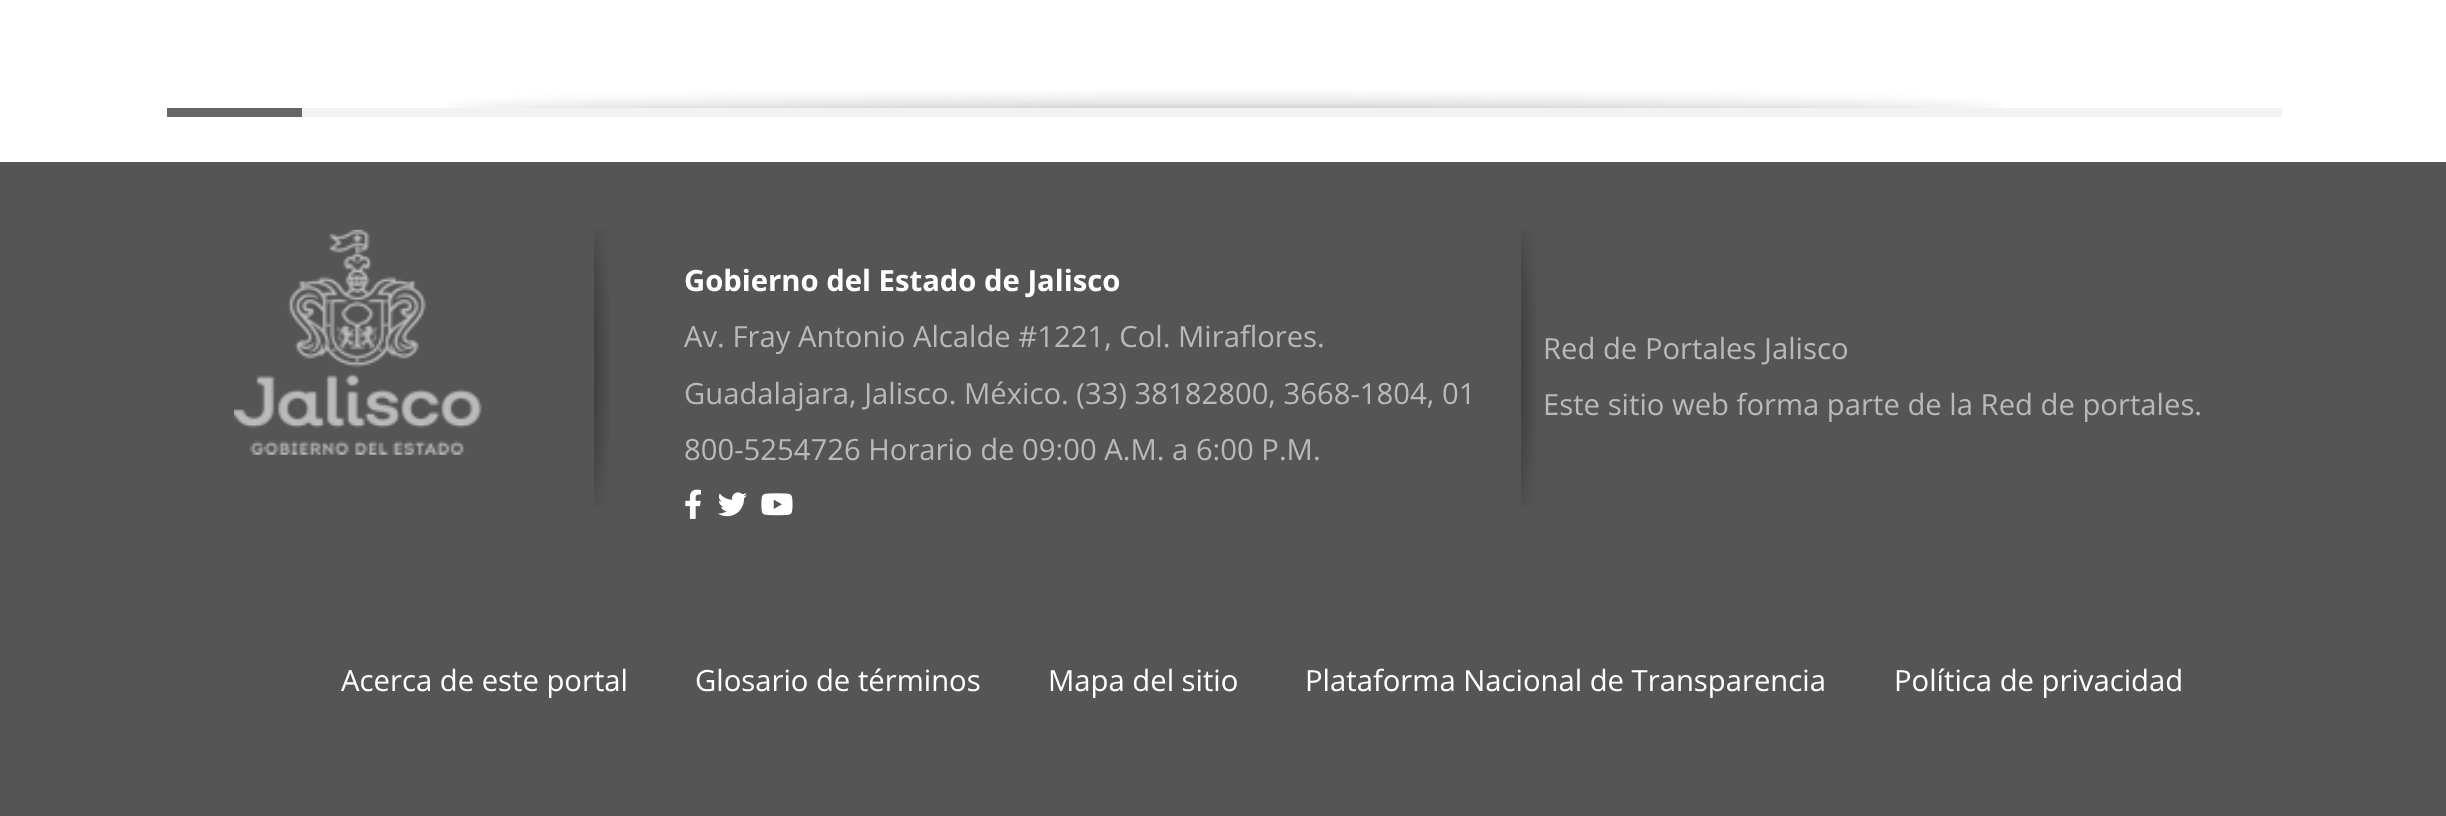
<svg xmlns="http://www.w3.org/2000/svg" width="2446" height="816">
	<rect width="100%" height="100%" fill="#FFFFFF" />
	<image x="446" y="90" width="1557" height="18" href="assets/img1.png" />
	<rect x="302" y="108" width="1980" height="9" fill="#F2F2F2" />
	<rect x="167" y="108" width="135" height="9" fill="#666666" />
	<rect x="0" y="162" width="2446" height="654" fill="#555555" />
	<image x="234" y="229" width="248" height="226" href="assets/img2.png" />
	<image x="594" y="229" width="15" height="277" href="assets/img3.png" />
	<text x="684" y="291" font-family="Open Sans" font-size="29.25" font-weight="700" fill="#FFFFFF">Gobierno del Estado de Jalisco</text>
	<g font-family="Open Sans" font-size="29.25" fill="#B9B9B9">
		<text x="684" y="347">Av. Fray Antonio Alcalde #1221, Col. Miraflores.</text>
		<text x="684" y="404">Guadalajara, Jalisco. México. (33) 38182800, 3668-1804, 01</text>
		<text x="684" y="460">800-5254726 Horario de 09:00 A.M. a 6:00 P.M.</text>
	</g>
	<image x="685" y="489" width="16" height="30" href="assets/img4.png" />
	<image x="718" y="492" width="29" height="25" href="assets/img5.png" />
	<image x="761" y="493" width="32" height="23" href="assets/img6.png" />
	<image x="1521" y="229" width="15" height="277" href="assets/img3.png" />
	<g font-family="Open Sans" font-size="29.25" fill="#B9B9B9">
		<text x="1543" y="359">Red de Portales Jalisco</text>
		<text x="1543" y="415">Este sitio web forma parte de la Red de portales.</text>
	</g>
	<g font-family="Open Sans" font-size="29.25" fill="#FFFFFF">
		<text x="341" y="691">Acerca de este portal</text>
		<text x="695" y="691">Glosario de términos</text>
		<text x="1048" y="691">Mapa del sitio</text>
		<text x="1305" y="691">Plataforma Nacional de Transparencia</text>
		<text x="1894" y="691">Política de privacidad</text>
	</g>
</svg>
